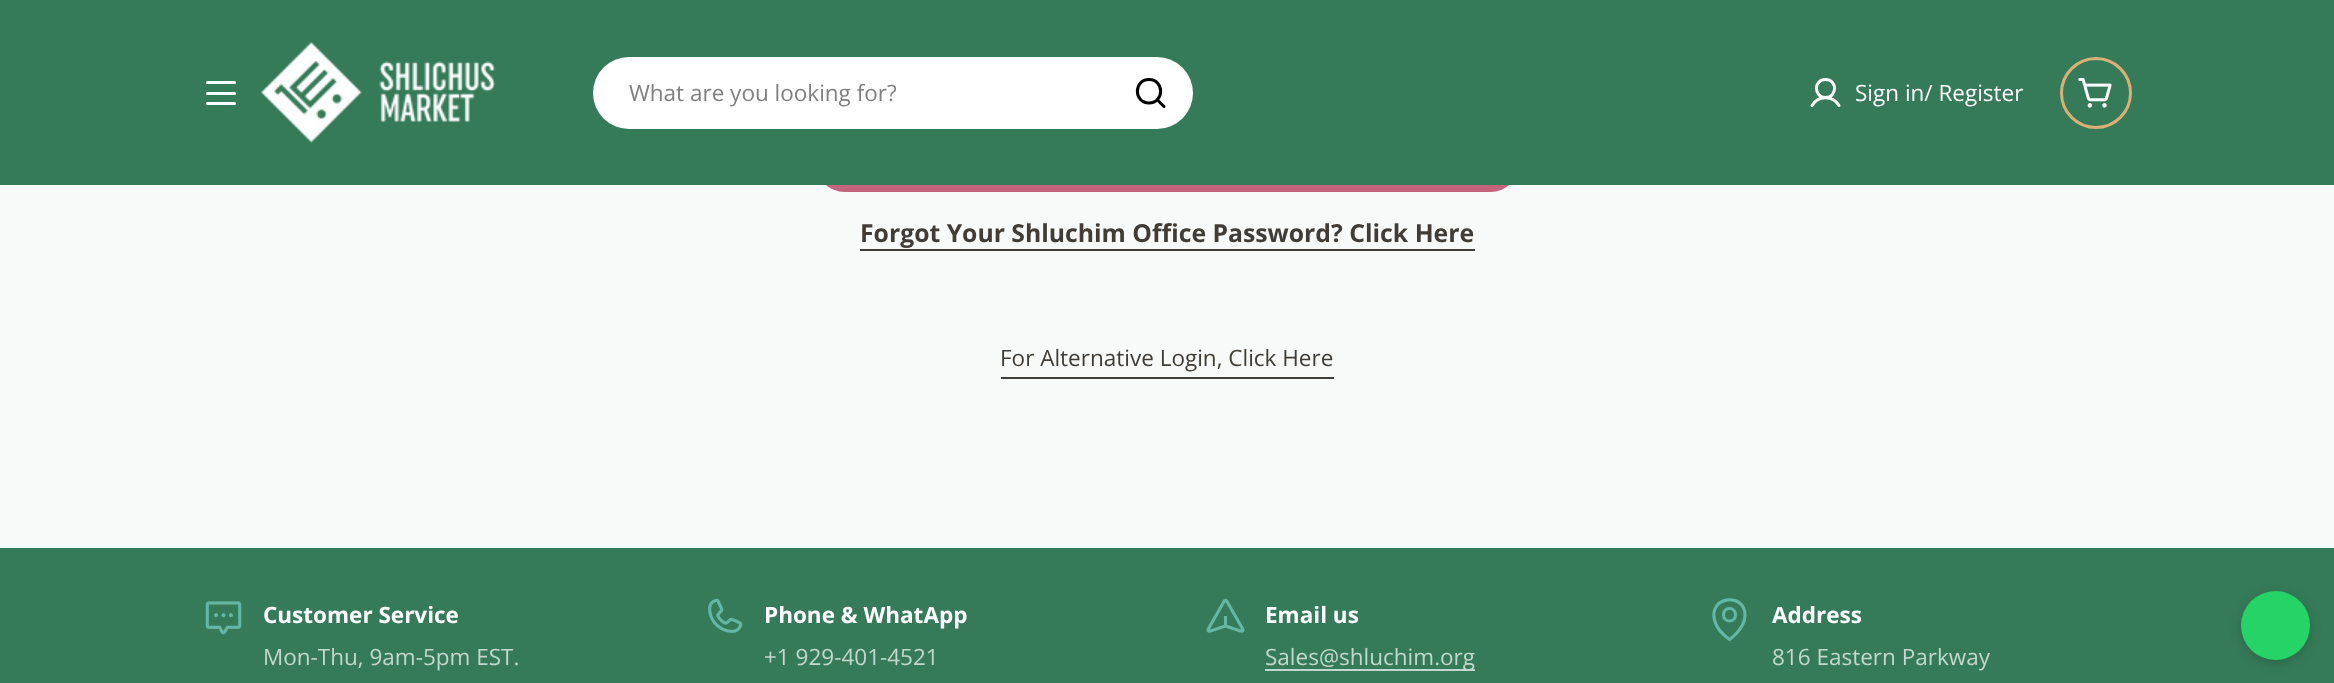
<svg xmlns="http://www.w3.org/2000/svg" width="2334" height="683">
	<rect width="100%" height="100%" fill="#F7FAF8" />
	<rect x="815" y="132" width="705" height="60" rx="30" fill="#C15B74" />
	<rect x="0" y="6" width="2334" height="185" fill="#FFFFFF" fill-opacity="0.1" filter="blur(13.5px)" />
	<rect x="0" y="0" width="2334" height="185" fill="#367B59" />
	<rect x="206" y="92" width="30" height="3" rx="1.5" fill="#FFFFFF" />
	<rect x="206" y="81" width="30" height="3" rx="1.5" fill="#FFFFFF" />
	<rect x="206" y="102" width="30" height="3" rx="1.5" fill="#FFFFFF" />
	<image x="260" y="41" width="236" height="102" href="assets/img1.png" />
	<rect x="593" y="57" width="600" height="72" rx="36" fill="#FFFFFF" />
	<text x="629" y="101" font-family="Open Sans" font-size="22.5" fill="#808080">What are you looking for?</text>
	<path d="M1149 103C1164.5 103 1164.5 79.5 1149 79.5C1133.5 79.5 1133.5 103 1149 103ZM1157 99.5L1164 106.5" fill="none" stroke="#000000" stroke-width="3" stroke-linecap="round" stroke-linejoin="round" />
	<path d="M1825.5 97.5C1837.5 97.5 1837.5 79.5 1825.5 79.5C1813.5 79.5 1813.5 97.5 1825.5 97.5ZM1812 105.5C1818 95 1833 95 1839 105.5" fill="none" stroke="#FFFFFF" stroke-width="3" stroke-linecap="round" stroke-linejoin="round" />
	<text x="1855" y="101" font-family="Open Sans" font-size="22.5" fill="#FFFFFF">Sign in/ Register</text>
	<circle cx="2096" cy="93" r="34.5" fill="none" stroke="#DBB077" stroke-width="3" />
	<image x="2078" y="78" width="34" height="30" href="assets/img2.png" />
	<text x="860" y="242" font-family="Open Sans" font-size="24.75" font-weight="700" fill="#413D36">Forgot Your Shluchim Office Password? Click Here</text>
	<rect x="860" y="249" width="615" height="2" fill="#413D36" />
	<text x="1000" y="366" font-family="Open Sans" font-size="22.5" fill="#413D36">For Alternative Login, Click Here</text>
	<rect x="1001" y="377" width="333" height="2" fill="#403E3B" />
	<rect x="0" y="548" width="2334" height="135" fill="#367B59" />
	<image x="205" y="601" width="37" height="34" href="assets/img3.png" />
	<text x="263" y="623" font-family="Open Sans" font-size="22.5" font-weight="700" fill="#FFFFFF">Customer Service</text>
	<text x="263" y="665" font-family="Open Sans" font-size="22.5" fill="#C2D7CD">Mon-Thu, 9am-5pm EST.</text>
	<image x="708" y="598" width="35" height="35" href="assets/img4.png" />
	<text x="764" y="623" font-family="Open Sans" font-size="22.5" font-weight="700" fill="#FFFFFF">Phone &amp; WhatApp</text>
	<text x="764" y="665" font-family="Open Sans" font-size="22.5" fill="#C2D7CD">+1 929-401-4521</text>
	<image x="1206" y="598" width="39" height="35" href="assets/img5.png" />
	<text x="1265" y="623" font-family="Open Sans" font-size="22.5" font-weight="700" fill="#FFFFFF">Email us</text>
	<rect x="1265" y="669" width="210" height="2" fill="#C2D7CD" />
	<text x="1265" y="665" font-family="Open Sans" font-size="22.5" fill="#C2D7CD">Sales@shluchim.org</text>
	<path d="M1729.5 621C1737.5 621 1737.5 608.5 1729.5 608.5C1721.5 608.5 1721.5 621 1729.5 621ZM1745 615C1745 629 1729.5 639.5 1729.5 639.5C1723 635 1716.5 628 1714.5 620C1708.5 596 1745 592 1745 615Z" fill="none" stroke="#64B7A6" stroke-width="3.1" stroke-linecap="round" stroke-linejoin="round" />
	<text x="1772" y="623" font-family="Open Sans" font-size="22.5" font-weight="700" fill="#FFFFFF">Address</text>
	<text x="1772" y="665" font-family="Open Sans" font-size="22.5" fill="#C2D7CD">816 Eastern Parkway</text>
	<rect x="2241" y="594" width="69" height="69" rx="34.5" fill="#000000" fill-opacity="0.18" filter="blur(6px)" />
	<circle cx="2275.5" cy="625.5" r="34.5" fill="#25D366" />
</svg>
